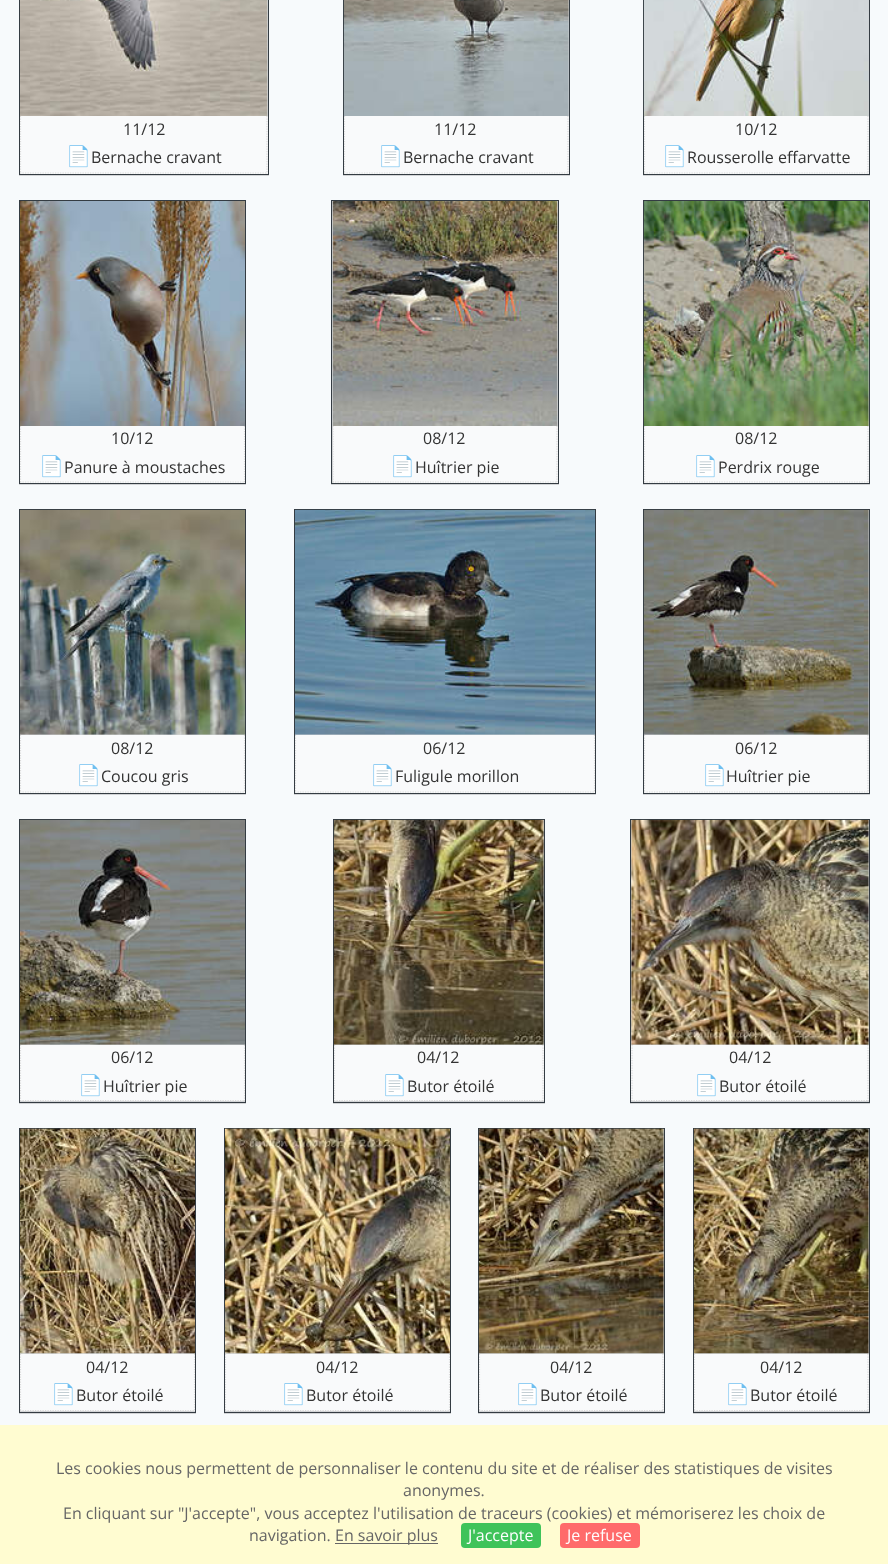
<svg xmlns="http://www.w3.org/2000/svg" width="888" height="1564">
	<style>*{font-kerning:none!important;font-variant-ligatures:none!important}</style>
	<defs>
		<clipPath id="clip1"><rect x="20" y="0" width="248" height="174" /></clipPath>
		<clipPath id="clip2"><rect x="344" y="0" width="225" height="174" /></clipPath>
		<clipPath id="clip3"><rect x="644" y="0" width="225" height="174" /></clipPath>
		<clipPath id="clip4"><rect x="20" y="201" width="225" height="282" /></clipPath>
		<clipPath id="clip5"><rect x="333" y="201" width="225" height="282" /></clipPath>
		<clipPath id="clip6"><rect x="644" y="201" width="225" height="282" /></clipPath>
		<clipPath id="clip7"><rect x="20" y="510" width="225" height="283" /></clipPath>
		<clipPath id="clip8"><rect x="295" y="510" width="300" height="283" /></clipPath>
		<clipPath id="clip9"><rect x="644" y="510" width="225" height="283" /></clipPath>
		<clipPath id="clip10"><rect x="20" y="820" width="225" height="281" /></clipPath>
		<clipPath id="clip11"><rect x="334" y="820" width="210" height="281" /></clipPath>
		<clipPath id="clip12"><rect x="631" y="820" width="238" height="281" /></clipPath>
		<clipPath id="clip13"><rect x="20" y="1129" width="175" height="282" /></clipPath>
		<clipPath id="clip14"><rect x="225" y="1129" width="225" height="282" /></clipPath>
		<clipPath id="clip15"><rect x="479" y="1129" width="185" height="282" /></clipPath>
		<clipPath id="clip16"><rect x="694" y="1129" width="175" height="282" /></clipPath>
	</defs>
	<rect width="100%" height="100%" fill="#F7FAFC" />
	<rect x="19" y="-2" width="250" height="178" fill="#000000" fill-opacity="0.15" filter="blur(0.5px)" />
	<rect x="19.5" y="-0.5" width="249" height="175" fill="none" stroke="#343C43" />
	<image x="20" y="0" width="248" height="116" href="assets/img1.png" />
	<rect x="20" y="116" width="248" height="58" fill="#F9FAFB" />
	<path d="M267 116V174" fill="none" stroke="#DADADA" stroke-width="1.2" stroke-dasharray="1.25 1.25" />
	<path d="M20 173H267.5" fill="none" stroke="#DADADA" stroke-width="1.2" stroke-dasharray="1.25 1.25" />
	<g clip-path="url(#clip1)">
		<path d="M20.5 116V174" fill="none" stroke="#DADADA" stroke-width="1.2" stroke-dasharray="1.25 1.25" />
	</g>
	<text x="123" y="135" font-family="Open Sans" font-size="16" fill="#333333">11/12</text>
	<text x="66" y="163" font-family="Noto Color Emoji" font-size="20" fill="#333333">📄</text>
	<text x="91" y="163" font-family="Open Sans" font-size="16" fill="#333333">Bernache cravant</text>
	<rect x="343" y="-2" width="227" height="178" fill="#000000" fill-opacity="0.15" filter="blur(0.5px)" />
	<rect x="343.5" y="-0.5" width="226" height="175" fill="none" stroke="#343C43" />
	<image x="343" y="0" width="226" height="116" href="assets/img2.png" />
	<rect x="344" y="116" width="225" height="58" fill="#F9FAFB" />
	<path d="M568 116V174" fill="none" stroke="#DADADA" stroke-width="1.2" stroke-dasharray="1.25 1.25" />
	<path d="M344 173H569" fill="none" stroke="#DADADA" stroke-width="1.2" stroke-dasharray="1.25 1.25" />
	<g clip-path="url(#clip2)">
		<path d="M344.5 116V174" fill="none" stroke="#DADADA" stroke-width="1.2" stroke-dasharray="1.25 1.25" />
	</g>
	<text x="434" y="135" font-family="Open Sans" font-size="16" fill="#333333">11/12</text>
	<text x="378" y="163" font-family="Noto Color Emoji" font-size="20" fill="#333333">📄</text>
	<text x="403" y="163" font-family="Open Sans" font-size="16" fill="#333333">Bernache cravant</text>
	<rect x="643" y="-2" width="227" height="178" fill="#000000" fill-opacity="0.15" filter="blur(0.5px)" />
	<rect x="643.5" y="-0.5" width="226" height="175" fill="none" stroke="#343C43" />
	<image x="643" y="0" width="226" height="116" href="assets/img3.png" />
	<rect x="644" y="116" width="225" height="58" fill="#F9FAFB" />
	<path d="M868 116V174" fill="none" stroke="#DADADA" stroke-width="1.2" stroke-dasharray="1.25 1.25" />
	<path d="M644 173H869" fill="none" stroke="#DADADA" stroke-width="1.2" stroke-dasharray="1.25 1.25" />
	<g clip-path="url(#clip3)">
		<path d="M644.5 116V174" fill="none" stroke="#DADADA" stroke-width="1.2" stroke-dasharray="1.25 1.25" />
	</g>
	<text x="735" y="135" font-family="Open Sans" font-size="16" fill="#333333">10/12</text>
	<text x="662" y="163" font-family="Noto Color Emoji" font-size="20" fill="#333333">📄</text>
	<text x="687" y="163" font-family="Open Sans" font-size="16" fill="#333333">Rousserolle effarvatte</text>
	<rect x="19" y="201" width="227" height="284" fill="#000000" fill-opacity="0.15" filter="blur(0.5px)" />
	<rect x="19.5" y="200.5" width="226" height="283" fill="none" stroke="#343C43" />
	<image x="20" y="201" width="225" height="225" href="assets/img4.png" />
	<rect x="20" y="426" width="225" height="57" fill="#F9FAFB" />
	<g clip-path="url(#clip4)">
		<path d="M244.5 426V482.5" fill="none" stroke="#DADADA" stroke-width="1.2" stroke-dasharray="1.25 1.25" />
	</g>
	<path d="M20 482H245" fill="none" stroke="#DADADA" stroke-width="1.2" stroke-dasharray="1.25 1.25" />
	<g clip-path="url(#clip4)">
		<path d="M20.5 426V482.5" fill="none" stroke="#DADADA" stroke-width="1.2" stroke-dasharray="1.25 1.25" />
	</g>
	<text x="111" y="444" font-family="Open Sans" font-size="16" fill="#333333">10/12</text>
	<text x="39" y="473" font-family="Noto Color Emoji" font-size="20" fill="#333333">📄</text>
	<text x="64" y="473" font-family="Open Sans" font-size="16" fill="#333333">Panure à moustaches</text>
	<rect x="331" y="201" width="228" height="284" fill="#000000" fill-opacity="0.15" filter="blur(0.5px)" />
	<rect x="331.5" y="200.5" width="227" height="283" fill="none" stroke="#343C43" />
	<image x="332" y="201" width="226" height="225" href="assets/img5.png" />
	<rect x="333" y="426" width="225" height="57" fill="#F9FAFB" />
	<path d="M557 426V482.5" fill="none" stroke="#DADADA" stroke-width="1.2" stroke-dasharray="1.25 1.25" />
	<path d="M332.5 482H557.5" fill="none" stroke="#DADADA" stroke-width="1.2" stroke-dasharray="1.25 1.25" />
	<g clip-path="url(#clip5)">
		<path d="M333 426V482.5" fill="none" stroke="#DADADA" stroke-width="1.2" stroke-dasharray="1.25 1.25" />
	</g>
	<text x="423" y="444" font-family="Open Sans" font-size="16" fill="#333333">08/12</text>
	<text x="390" y="473" font-family="Noto Color Emoji" font-size="20" fill="#333333">📄</text>
	<text x="415" y="473" font-family="Open Sans" font-size="16" fill="#333333">Huîtrier pie</text>
	<rect x="643" y="201" width="227" height="284" fill="#000000" fill-opacity="0.15" filter="blur(0.5px)" />
	<rect x="643.5" y="200.5" width="226" height="283" fill="none" stroke="#343C43" />
	<image x="643" y="201" width="226" height="225" href="assets/img6.png" />
	<rect x="644" y="426" width="225" height="57" fill="#F9FAFB" />
	<path d="M868 426V482.5" fill="none" stroke="#DADADA" stroke-width="1.2" stroke-dasharray="1.25 1.25" />
	<path d="M644 482H869" fill="none" stroke="#DADADA" stroke-width="1.2" stroke-dasharray="1.25 1.25" />
	<g clip-path="url(#clip6)">
		<path d="M644.5 426V482.5" fill="none" stroke="#DADADA" stroke-width="1.2" stroke-dasharray="1.25 1.25" />
	</g>
	<text x="735" y="444" font-family="Open Sans" font-size="16" fill="#333333">08/12</text>
	<text x="693" y="473" font-family="Noto Color Emoji" font-size="20" fill="#333333">📄</text>
	<text x="718" y="473" font-family="Open Sans" font-size="16" fill="#333333">Perdrix rouge</text>
	<rect x="19" y="510" width="227" height="285" fill="#000000" fill-opacity="0.15" filter="blur(0.5px)" />
	<rect x="19.5" y="509.5" width="226" height="284" fill="none" stroke="#343C43" />
	<image x="20" y="509" width="225" height="226" href="assets/img7.png" />
	<rect x="20" y="735" width="225" height="58" fill="#F9FAFB" />
	<g clip-path="url(#clip7)">
		<path d="M244.5 735V792.5" fill="none" stroke="#DADADA" stroke-width="1.2" stroke-dasharray="1.25 1.25" />
	</g>
	<path d="M20 792H245" fill="none" stroke="#DADADA" stroke-width="1.2" stroke-dasharray="1.25 1.25" />
	<g clip-path="url(#clip7)">
		<path d="M20.5 735V792.5" fill="none" stroke="#DADADA" stroke-width="1.2" stroke-dasharray="1.25 1.25" />
	</g>
	<text x="111" y="754" font-family="Open Sans" font-size="16" fill="#333333">08/12</text>
	<text x="76" y="782" font-family="Noto Color Emoji" font-size="20" fill="#333333">📄</text>
	<text x="101" y="782" font-family="Open Sans" font-size="16" fill="#333333">Coucou gris</text>
	<rect x="294" y="510" width="302" height="285" fill="#000000" fill-opacity="0.15" filter="blur(0.5px)" />
	<rect x="294.5" y="509.5" width="301" height="284" fill="none" stroke="#343C43" />
	<image x="295" y="509" width="300" height="226" href="assets/img8.png" />
	<rect x="295" y="735" width="300" height="58" fill="#F9FAFB" />
	<g clip-path="url(#clip8)">
		<path d="M594.5 735V792.5" fill="none" stroke="#DADADA" stroke-width="1.2" stroke-dasharray="1.25 1.25" />
	</g>
	<path d="M295 792H595" fill="none" stroke="#DADADA" stroke-width="1.2" stroke-dasharray="1.25 1.25" />
	<g clip-path="url(#clip8)">
		<path d="M295.5 735V792.5" fill="none" stroke="#DADADA" stroke-width="1.2" stroke-dasharray="1.25 1.25" />
	</g>
	<text x="423" y="754" font-family="Open Sans" font-size="16" fill="#333333">06/12</text>
	<text x="370" y="782" font-family="Noto Color Emoji" font-size="20" fill="#333333">📄</text>
	<text x="395" y="782" font-family="Open Sans" font-size="16" fill="#333333">Fuligule morillon</text>
	<rect x="643" y="510" width="227" height="285" fill="#000000" fill-opacity="0.15" filter="blur(0.5px)" />
	<rect x="643.5" y="509.5" width="226" height="284" fill="none" stroke="#343C43" />
	<image x="643" y="509" width="226" height="226" href="assets/img9.png" />
	<rect x="644" y="735" width="225" height="58" fill="#F9FAFB" />
	<path d="M868 735V792.5" fill="none" stroke="#DADADA" stroke-width="1.2" stroke-dasharray="1.25 1.25" />
	<path d="M644 792H869" fill="none" stroke="#DADADA" stroke-width="1.2" stroke-dasharray="1.25 1.25" />
	<g clip-path="url(#clip9)">
		<path d="M644.5 735V792.5" fill="none" stroke="#DADADA" stroke-width="1.2" stroke-dasharray="1.25 1.25" />
	</g>
	<text x="735" y="754" font-family="Open Sans" font-size="16" fill="#333333">06/12</text>
	<text x="702" y="782" font-family="Noto Color Emoji" font-size="20" fill="#333333">📄</text>
	<text x="726" y="782" font-family="Open Sans" font-size="16" fill="#333333">Huîtrier pie</text>
	<rect x="19" y="820" width="227" height="284" fill="#000000" fill-opacity="0.15" filter="blur(0.5px)" />
	<rect x="19.5" y="819.5" width="226" height="283" fill="none" stroke="#343C43" />
	<image x="20" y="819" width="225" height="226" href="assets/img10.png" />
	<rect x="20" y="1045" width="225" height="56" fill="#F9FAFB" />
	<g clip-path="url(#clip10)">
		<path d="M244.5 1045V1101" fill="none" stroke="#DADADA" stroke-width="1.2" stroke-dasharray="1.25 1.25" />
		<path d="M20 1100.5H245" fill="none" stroke="#DADADA" stroke-width="1.2" stroke-dasharray="1.25 1.25" />
		<path d="M20.5 1045V1101" fill="none" stroke="#DADADA" stroke-width="1.2" stroke-dasharray="1.25 1.25" />
	</g>
	<text x="111" y="1063" font-family="Open Sans" font-size="16" fill="#333333">06/12</text>
	<text x="78" y="1092" font-family="Noto Color Emoji" font-size="20" fill="#333333">📄</text>
	<text x="103" y="1092" font-family="Open Sans" font-size="16" fill="#333333">Huîtrier pie</text>
	<rect x="333" y="820" width="212" height="284" fill="#000000" fill-opacity="0.15" filter="blur(0.5px)" />
	<rect x="333.5" y="819.5" width="211" height="283" fill="none" stroke="#343C43" />
	<image x="333" y="819" width="211" height="226" href="assets/img11.png" />
	<rect x="334" y="1045" width="210" height="56" fill="#F9FAFB" />
	<path d="M543 1045V1101" fill="none" stroke="#DADADA" stroke-width="1.2" stroke-dasharray="1.25 1.25" />
	<g clip-path="url(#clip11)">
		<path d="M334 1100.5H544" fill="none" stroke="#DADADA" stroke-width="1.2" stroke-dasharray="1.25 1.25" />
		<path d="M334.5 1045V1101" fill="none" stroke="#DADADA" stroke-width="1.2" stroke-dasharray="1.25 1.25" />
	</g>
	<text x="417" y="1063" font-family="Open Sans" font-size="16" fill="#333333">04/12</text>
	<text x="382" y="1092" font-family="Noto Color Emoji" font-size="20" fill="#333333">📄</text>
	<text x="407" y="1092" font-family="Open Sans" font-size="16" fill="#333333">Butor étoilé</text>
	<rect x="630" y="820" width="240" height="284" fill="#000000" fill-opacity="0.15" filter="blur(0.5px)" />
	<rect x="630.5" y="819.5" width="239" height="283" fill="none" stroke="#343C43" />
	<image x="631" y="819" width="238" height="226" href="assets/img12.png" />
	<rect x="631" y="1045" width="238" height="56" fill="#F9FAFB" />
	<path d="M868 1045V1101" fill="none" stroke="#DADADA" stroke-width="1.2" stroke-dasharray="1.25 1.25" />
	<g clip-path="url(#clip12)">
		<path d="M631 1100.5H869" fill="none" stroke="#DADADA" stroke-width="1.2" stroke-dasharray="1.25 1.25" />
	</g>
	<path d="M632 1045V1101" fill="none" stroke="#DADADA" stroke-width="1.2" stroke-dasharray="1.25 1.25" />
	<text x="729" y="1063" font-family="Open Sans" font-size="16" fill="#333333">04/12</text>
	<text x="694" y="1092" font-family="Noto Color Emoji" font-size="20" fill="#333333">📄</text>
	<text x="719" y="1092" font-family="Open Sans" font-size="16" fill="#333333">Butor étoilé</text>
	<rect x="19" y="1129" width="177" height="285" fill="#000000" fill-opacity="0.15" filter="blur(0.5px)" />
	<rect x="19.5" y="1128.5" width="176" height="284" fill="none" stroke="#343C43" />
	<image x="20" y="1128" width="175" height="226" href="assets/img13.png" />
	<rect x="20" y="1354" width="175" height="57" fill="#F9FAFB" />
	<g clip-path="url(#clip13)">
		<path d="M194.5 1354V1411" fill="none" stroke="#DADADA" stroke-width="1.2" stroke-dasharray="1.25 1.25" />
		<path d="M20 1410.5H195" fill="none" stroke="#DADADA" stroke-width="1.2" stroke-dasharray="1.25 1.25" />
		<path d="M20.5 1354V1411" fill="none" stroke="#DADADA" stroke-width="1.2" stroke-dasharray="1.25 1.25" />
	</g>
	<text x="86" y="1373" font-family="Open Sans" font-size="16" fill="#333333">04/12</text>
	<text x="51" y="1401" font-family="Noto Color Emoji" font-size="20" fill="#333333">📄</text>
	<text x="76" y="1401" font-family="Open Sans" font-size="16" fill="#333333">Butor étoilé</text>
	<rect x="224" y="1129" width="227" height="285" fill="#000000" fill-opacity="0.15" filter="blur(0.5px)" />
	<rect x="224.5" y="1128.5" width="226" height="284" fill="none" stroke="#343C43" />
	<image x="225" y="1128" width="225" height="226" href="assets/img14.png" />
	<rect x="225" y="1354" width="225" height="57" fill="#F9FAFB" />
	<g clip-path="url(#clip14)">
		<path d="M449.5 1354V1411" fill="none" stroke="#DADADA" stroke-width="1.2" stroke-dasharray="1.25 1.25" />
		<path d="M225 1410.5H450" fill="none" stroke="#DADADA" stroke-width="1.2" stroke-dasharray="1.25 1.25" />
		<path d="M225.5 1354V1411" fill="none" stroke="#DADADA" stroke-width="1.2" stroke-dasharray="1.25 1.25" />
	</g>
	<text x="316" y="1373" font-family="Open Sans" font-size="16" fill="#333333">04/12</text>
	<text x="281" y="1401" font-family="Noto Color Emoji" font-size="20" fill="#333333">📄</text>
	<text x="306" y="1401" font-family="Open Sans" font-size="16" fill="#333333">Butor étoilé</text>
	<rect x="478" y="1129" width="187" height="285" fill="#000000" fill-opacity="0.15" filter="blur(0.5px)" />
	<rect x="478.5" y="1128.5" width="186" height="284" fill="none" stroke="#343C43" />
	<image x="478" y="1128" width="186" height="226" href="assets/img15.png" />
	<rect x="479" y="1354" width="185" height="57" fill="#F9FAFB" />
	<path d="M663 1354V1411" fill="none" stroke="#DADADA" stroke-width="1.2" stroke-dasharray="1.25 1.25" />
	<g clip-path="url(#clip15)">
		<path d="M479 1410.5H664" fill="none" stroke="#DADADA" stroke-width="1.2" stroke-dasharray="1.25 1.25" />
		<path d="M479.5 1354V1411" fill="none" stroke="#DADADA" stroke-width="1.2" stroke-dasharray="1.25 1.25" />
	</g>
	<text x="550" y="1373" font-family="Open Sans" font-size="16" fill="#333333">04/12</text>
	<text x="515" y="1401" font-family="Noto Color Emoji" font-size="20" fill="#333333">📄</text>
	<text x="540" y="1401" font-family="Open Sans" font-size="16" fill="#333333">Butor étoilé</text>
	<rect x="693" y="1129" width="177" height="285" fill="#000000" fill-opacity="0.15" filter="blur(0.5px)" />
	<rect x="693.5" y="1128.5" width="176" height="284" fill="none" stroke="#343C43" />
	<image x="693" y="1128" width="176" height="226" href="assets/img16.png" />
	<rect x="694" y="1354" width="175" height="57" fill="#F9FAFB" />
	<path d="M868 1354V1411" fill="none" stroke="#DADADA" stroke-width="1.2" stroke-dasharray="1.25 1.25" />
	<g clip-path="url(#clip16)">
		<path d="M694 1410.5H869" fill="none" stroke="#DADADA" stroke-width="1.2" stroke-dasharray="1.25 1.25" />
		<path d="M694.5 1354V1411" fill="none" stroke="#DADADA" stroke-width="1.2" stroke-dasharray="1.25 1.25" />
	</g>
	<text x="760" y="1373" font-family="Open Sans" font-size="16" fill="#333333">04/12</text>
	<text x="725" y="1401" font-family="Noto Color Emoji" font-size="20" fill="#333333">📄</text>
	<text x="750" y="1401" font-family="Open Sans" font-size="16" fill="#333333">Butor étoilé</text>
	<rect x="0" y="1425" width="888" height="139" fill="#FFFCD1" />
	<g font-family="Open Sans" font-size="16" fill="#666666">
		<text x="56" y="1474">Les cookies nous permettent de personnaliser le contenu du site et de réaliser des statistiques de visites</text>
		<text x="403" y="1496">anonymes.</text>
		<text x="63" y="1519">En cliquant sur "J'accepte", vous acceptez l'utilisation de traceurs (cookies) et mémoriserez les choix de</text>
		<text x="249" y="1541">navigation.</text>
	</g>
	<rect x="335" y="1543" width="103" height="1" fill="#666666" />
	<text x="335" y="1541" font-family="Open Sans" font-size="16" fill="#666666">En savoir plus</text>
	<rect x="461" y="1523" width="80" height="25" rx="4" fill="#3FC35A" />
	<text x="468" y="1541" font-family="Open Sans" font-size="16" fill="#FFFFFF">J'accepte</text>
	<rect x="560" y="1523" width="80" height="25" rx="4" fill="#FF6B6B" />
	<text x="567" y="1541" font-family="Open Sans" font-size="16" fill="#FFFFFF">Je refuse</text>
</svg>
